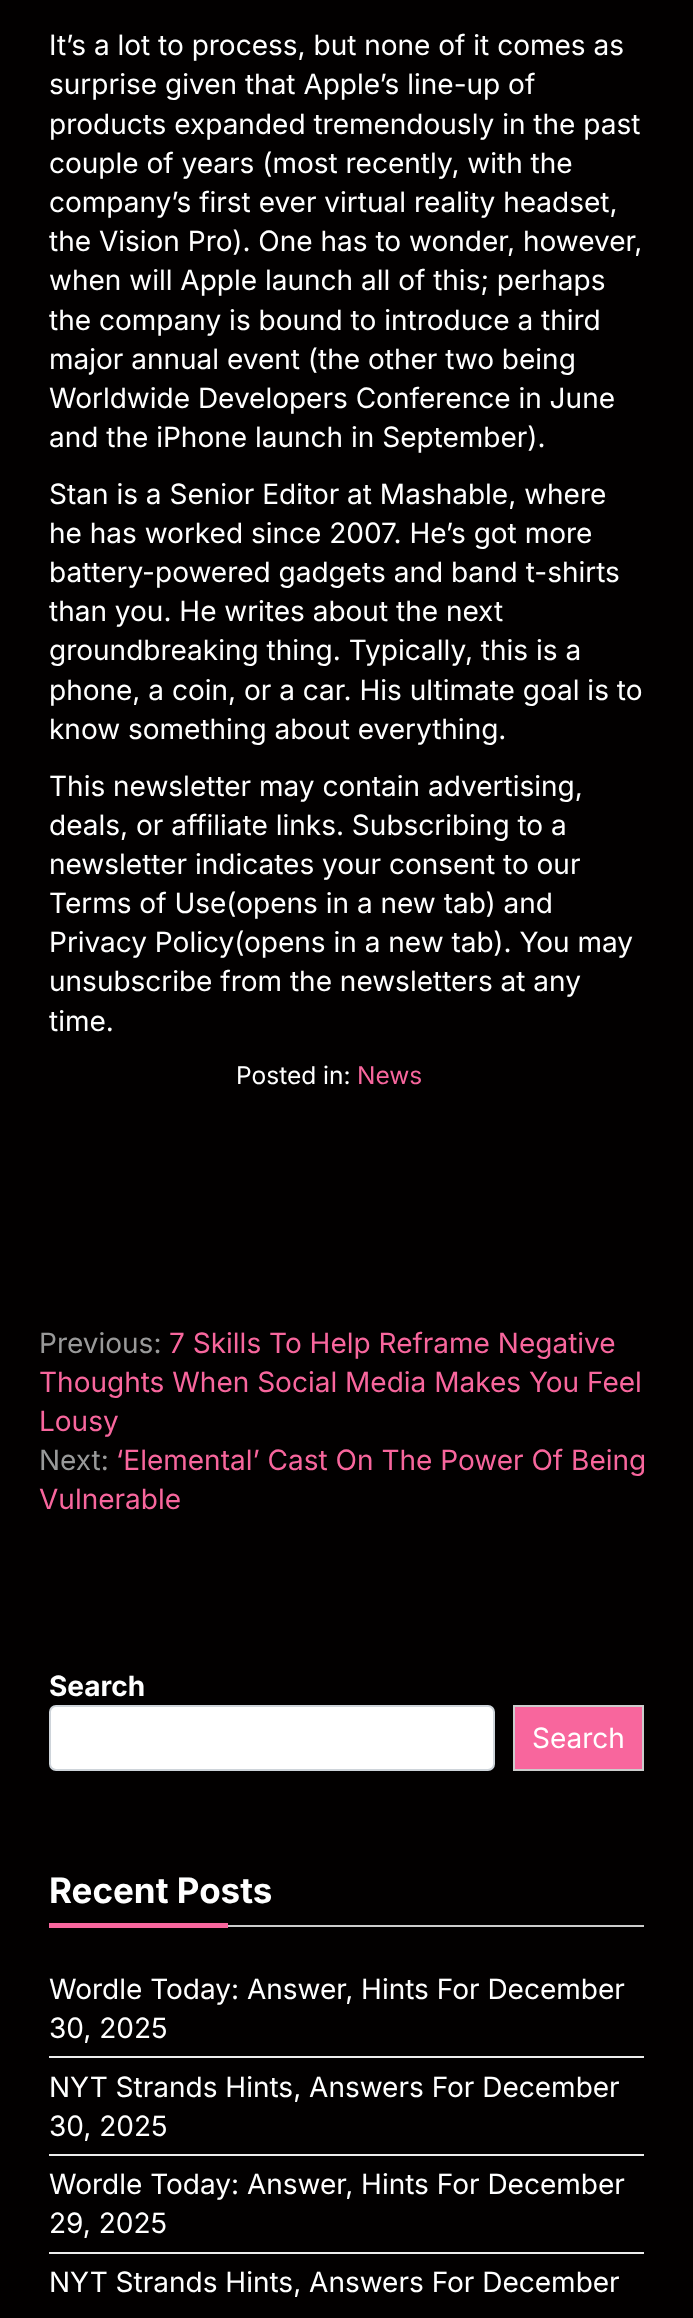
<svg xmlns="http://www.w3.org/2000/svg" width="693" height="2318">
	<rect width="100%" height="100%" fill="#020000" />
	<g font-family="Inter" font-size="28" fill="#FFFFFF">
		<text x="49" y="55">It’s a lot to process, but none of it comes as</text>
		<text x="49" y="94">surprise given that Apple’s line-up of</text>
		<text x="49" y="134">products expanded tremendously in the past</text>
		<text x="49" y="173">couple of years (most recently, with the</text>
		<text x="49" y="212">company’s first ever virtual reality headset,</text>
		<text x="49" y="251">the Vision Pro). One has to wonder, however,</text>
		<text x="49" y="290">when will Apple launch all of this; perhaps</text>
		<text x="49" y="330">the company is bound to introduce a third</text>
		<text x="49" y="369">major annual event (the other two being</text>
		<text x="49" y="408">Worldwide Developers Conference in June</text>
		<text x="49" y="447">and the iPhone launch in September).</text>
		<text x="49" y="504">Stan is a Senior Editor at Mashable, where</text>
		<text x="49" y="543">he has worked since 2007. He’s got more</text>
		<text x="49" y="582">battery-powered gadgets and band t-shirts</text>
		<text x="49" y="621">than you. He writes about the next</text>
		<text x="49" y="660">groundbreaking thing. Typically, this is a</text>
		<text x="49" y="700">phone, a coin, or a car. His ultimate goal is to</text>
		<text x="49" y="739">know something about everything.</text>
		<text x="49" y="796">This newsletter may contain advertising,</text>
		<text x="49" y="835">deals, or affiliate links. Subscribing to a</text>
		<text x="49" y="874">newsletter indicates your consent to our</text>
		<text x="49" y="913">Terms of Use(opens in a new tab) and</text>
		<text x="49" y="952">Privacy Policy(opens in a new tab). You may</text>
		<text x="49" y="991">unsubscribe from the newsletters at any</text>
		<text x="49" y="1031">time.</text>
	</g>
	<text x="236" y="1084" font-family="Inter" font-size="24.5" fill="#FFFFFF">Posted in:</text>
	<text x="357" y="1084" font-family="Inter" font-size="24.5" fill="#F8669D">News</text>
	<text x="39" y="1353" font-family="Inter" font-size="28" fill="#999999">Previous:</text>
	<g font-family="Inter" font-size="28" fill="#F8669D">
		<text x="169" y="1353">7 Skills To Help Reframe Negative</text>
		<text x="39" y="1392">Thoughts When Social Media Makes You Feel</text>
		<text x="39" y="1431">Lousy</text>
	</g>
	<text x="39" y="1470" font-family="Inter" font-size="28" fill="#999999">Next:</text>
	<g font-family="Inter" font-size="28" fill="#F8669D">
		<text x="116" y="1470">‘Elemental’ Cast On The Power Of Being</text>
		<text x="39" y="1509">Vulnerable</text>
	</g>
	<text x="49" y="1696" font-family="Inter" font-size="28" font-weight="700" fill="#FFFFFF">Search</text>
	<rect x="50" y="1706" width="444" height="64" rx="6" fill="#FFFFFF" stroke="#CED4DA" stroke-width="2" />
	<rect x="514" y="1706" width="129" height="64" fill="#F8669D" stroke="#CCCCCC" stroke-width="2" />
	<text x="532" y="1748" font-family="Inter" font-size="28" fill="#FFFFFF">Search</text>
	<rect x="228" y="1925" width="416" height="2" fill="#CCCCCC" />
	<text x="49" y="1903" font-family="Inter" font-size="35" font-weight="700" fill="#FFFFFF">Recent Posts</text>
	<rect x="49" y="1923" width="179" height="5" fill="#F8669D" />
	<rect x="49" y="2056" width="595" height="2" fill="#EDEDED" />
	<g font-family="Inter" font-size="28" fill="#FFFFFF">
		<text x="49" y="1999">Wordle Today: Answer, Hints For December</text>
		<text x="49" y="2038">30, 2025</text>
	</g>
	<rect x="49" y="2154" width="595" height="2" fill="#EDEDED" />
	<g font-family="Inter" font-size="28" fill="#FFFFFF">
		<text x="49" y="2097">NYT Strands Hints, Answers For December</text>
		<text x="49" y="2136">30, 2025</text>
	</g>
	<rect x="49" y="2252" width="595" height="2" fill="#EDEDED" />
	<g font-family="Inter" font-size="28" fill="#FFFFFF">
		<text x="49" y="2194">Wordle Today: Answer, Hints For December</text>
		<text x="49" y="2233">29, 2025</text>
		<text x="49" y="2292">NYT Strands Hints, Answers For December</text>
	</g>
</svg>
